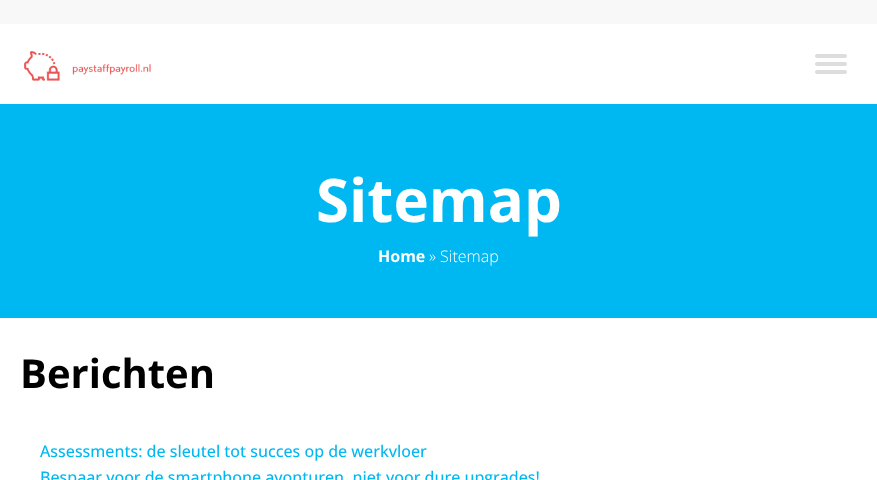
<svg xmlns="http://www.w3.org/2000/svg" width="877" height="480">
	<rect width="100%" height="100%" fill="#FFFFFF" />
	<rect x="0" y="0" width="877" height="24" fill="#F8F8F8" />
	<image x="24" y="51" width="127" height="30" href="assets/img1.png" />
	<rect x="815" y="54" width="32" height="4" rx="2" fill="#DDDDDD" />
	<rect x="815" y="62" width="32" height="4" rx="2" fill="#DDDDDD" />
	<rect x="815" y="70" width="32" height="4" rx="2" fill="#DDDDDD" />
	<rect x="0" y="104" width="877" height="214" fill="#00B8F1" />
	<text x="316" y="222" font-family="Open Sans" font-size="60" font-weight="700" fill="#FFFFFF">Sitemap</text>
	<text x="378" y="262" font-family="Open Sans" font-size="16" font-weight="700" fill="#FFFFFF">Home</text>
	<text x="429" y="262" font-family="Open Sans" font-size="16" font-weight="300" fill="#FFFFFF">» Sitemap</text>
	<text x="20" y="388" font-family="Open Sans" font-size="40" font-weight="700" fill="#000000">Berichten</text>
	<g font-family="Open Sans" font-size="16" font-weight="500" fill="#00B8F1">
		<text x="40" y="457">Assessments: de sleutel tot succes op de werkvloer</text>
		<text x="40" y="483">Bespaar voor de smartphone avonturen, niet voor dure upgrades!</text>
	</g>
</svg>
